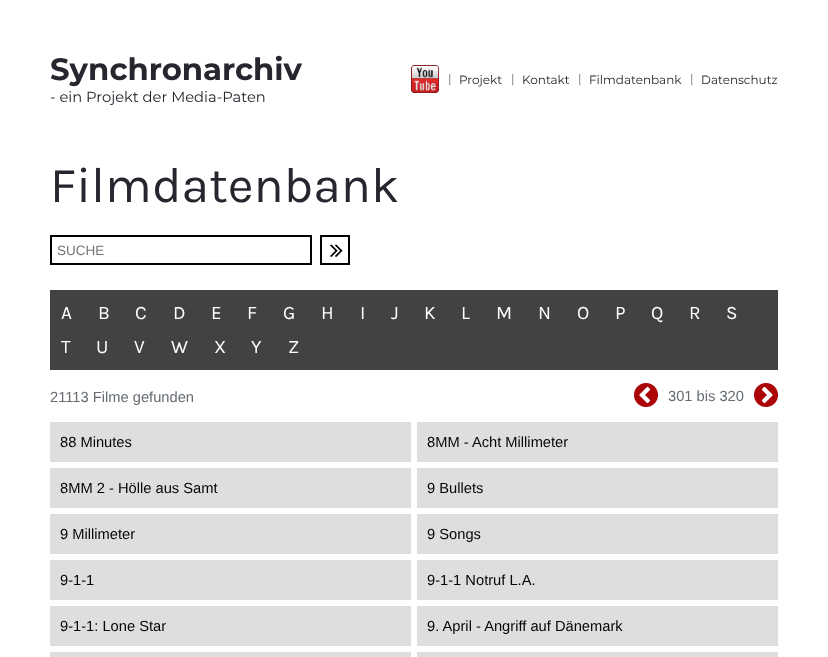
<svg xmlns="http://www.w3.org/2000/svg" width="828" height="657">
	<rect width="100%" height="100%" fill="#FFFFFF" />
	<text x="50" y="80" font-family="Montserrat" font-size="30.75" font-weight="700" fill="#25262E">Synchronarchiv</text>
	<text x="50" y="102" font-family="Montserrat" font-size="14.7" fill="#25262E">- ein Projekt der Media-Paten</text>
	<image x="411" y="65" width="28" height="28" href="assets/img1.png" />
	<text x="448" y="83" font-family="Montserrat" font-size="12" fill="#666C72">|</text>
	<text x="459" y="84" font-family="Montserrat" font-size="12" fill="#25262E">Projekt</text>
	<text x="511" y="83" font-family="Montserrat" font-size="12" fill="#666C72">|</text>
	<text x="522" y="84" font-family="Montserrat" font-size="12" fill="#25262E">Kontakt</text>
	<text x="578" y="83" font-family="Montserrat" font-size="12" fill="#666C72">|</text>
	<text x="589" y="84" font-family="Montserrat" font-size="12" fill="#25262E">Filmdatenbank</text>
	<text x="690" y="83" font-family="Montserrat" font-size="12" fill="#666C72">|</text>
	<text x="701" y="84" font-family="Montserrat" font-size="12" fill="#25262E">Datenschutz</text>
	<text x="50" y="202" font-family="Karla" font-size="50" fill="#25262E">Filmdatenbank</text>
	<rect x="51" y="236" width="260" height="28" fill="none" stroke="#000000" stroke-width="2" />
	<text x="57" y="255" font-family="Liberation Sans" font-size="13.5" fill="#757575">SUCHE</text>
	<rect x="321" y="236" width="28" height="28" fill="none" stroke="#000000" stroke-width="2" />
	<image x="330" y="244" width="13" height="13" href="assets/img2.png" />
	<rect x="50" y="290" width="728" height="80" fill="#424242" />
	<g font-family="Karla" font-size="19" fill="#FFFFFF">
		<text x="61" y="319">A</text>
		<text x="98" y="319">B</text>
		<text x="135" y="319">C</text>
		<text x="173" y="319">D</text>
		<text x="211" y="319">E</text>
		<text x="247" y="319">F</text>
		<text x="283" y="319">G</text>
		<text x="321" y="319">H</text>
		<text x="360" y="319">I</text>
		<text x="391" y="319">J</text>
		<text x="424" y="319">K</text>
		<text x="461" y="319">L</text>
		<text x="496" y="319">M</text>
		<text x="538" y="319">N</text>
		<text x="577" y="319">O</text>
		<text x="615" y="319">P</text>
		<text x="651" y="319">Q</text>
		<text x="689" y="319">R</text>
		<text x="726" y="319">S</text>
		<text x="61" y="353">T</text>
		<text x="96" y="353">U</text>
		<text x="134" y="353">V</text>
		<text x="171" y="353">W</text>
		<text x="214" y="353">X</text>
		<text x="251" y="353">Y</text>
		<text x="288" y="353">Z</text>
	</g>
	<text x="50" y="402" font-family="Liberation Sans" font-size="14.7" fill="#666C72">21113 Filme gefunden</text>
	<image x="634" y="383" width="24" height="24" href="assets/img3.png" />
	<text x="668" y="401" font-family="Liberation Sans" font-size="14.7" fill="#666C72">301 bis 320</text>
	<image x="754" y="383" width="24" height="24" href="assets/img4.png" />
	<rect x="50" y="422" width="361" height="40" fill="#DEDEDE" />
	<text x="60" y="447" font-family="Liberation Sans" font-size="14.7" fill="#060606">88 Minutes</text>
	<rect x="417" y="422" width="361" height="40" fill="#DEDEDE" />
	<text x="427" y="447" font-family="Liberation Sans" font-size="14.7" fill="#060606">8MM - Acht Millimeter</text>
	<rect x="50" y="468" width="361" height="40" fill="#DEDEDE" />
	<text x="60" y="493" font-family="Liberation Sans" font-size="14.7" fill="#060606">8MM 2 - Hölle aus Samt</text>
	<rect x="417" y="468" width="361" height="40" fill="#DEDEDE" />
	<text x="427" y="493" font-family="Liberation Sans" font-size="14.7" fill="#060606">9 Bullets</text>
	<rect x="50" y="514" width="361" height="40" fill="#DEDEDE" />
	<text x="60" y="539" font-family="Liberation Sans" font-size="14.7" fill="#060606">9 Millimeter</text>
	<rect x="417" y="514" width="361" height="40" fill="#DEDEDE" />
	<text x="427" y="539" font-family="Liberation Sans" font-size="14.7" fill="#060606">9 Songs</text>
	<rect x="50" y="560" width="361" height="40" fill="#DEDEDE" />
	<text x="60" y="585" font-family="Liberation Sans" font-size="14.7" fill="#060606">9-1-1</text>
	<rect x="417" y="560" width="361" height="40" fill="#DEDEDE" />
	<text x="427" y="585" font-family="Liberation Sans" font-size="14.7" fill="#060606">9-1-1 Notruf L.A.</text>
	<rect x="50" y="606" width="361" height="40" fill="#DEDEDE" />
	<text x="60" y="631" font-family="Liberation Sans" font-size="14.7" fill="#060606">9-1-1: Lone Star</text>
	<rect x="417" y="606" width="361" height="40" fill="#DEDEDE" />
	<text x="427" y="631" font-family="Liberation Sans" font-size="14.7" fill="#060606">9. April - Angriff auf Dänemark</text>
	<rect x="50" y="652" width="361" height="5" fill="#DEDEDE" />
	<rect x="417" y="652" width="361" height="5" fill="#DEDEDE" />
</svg>
